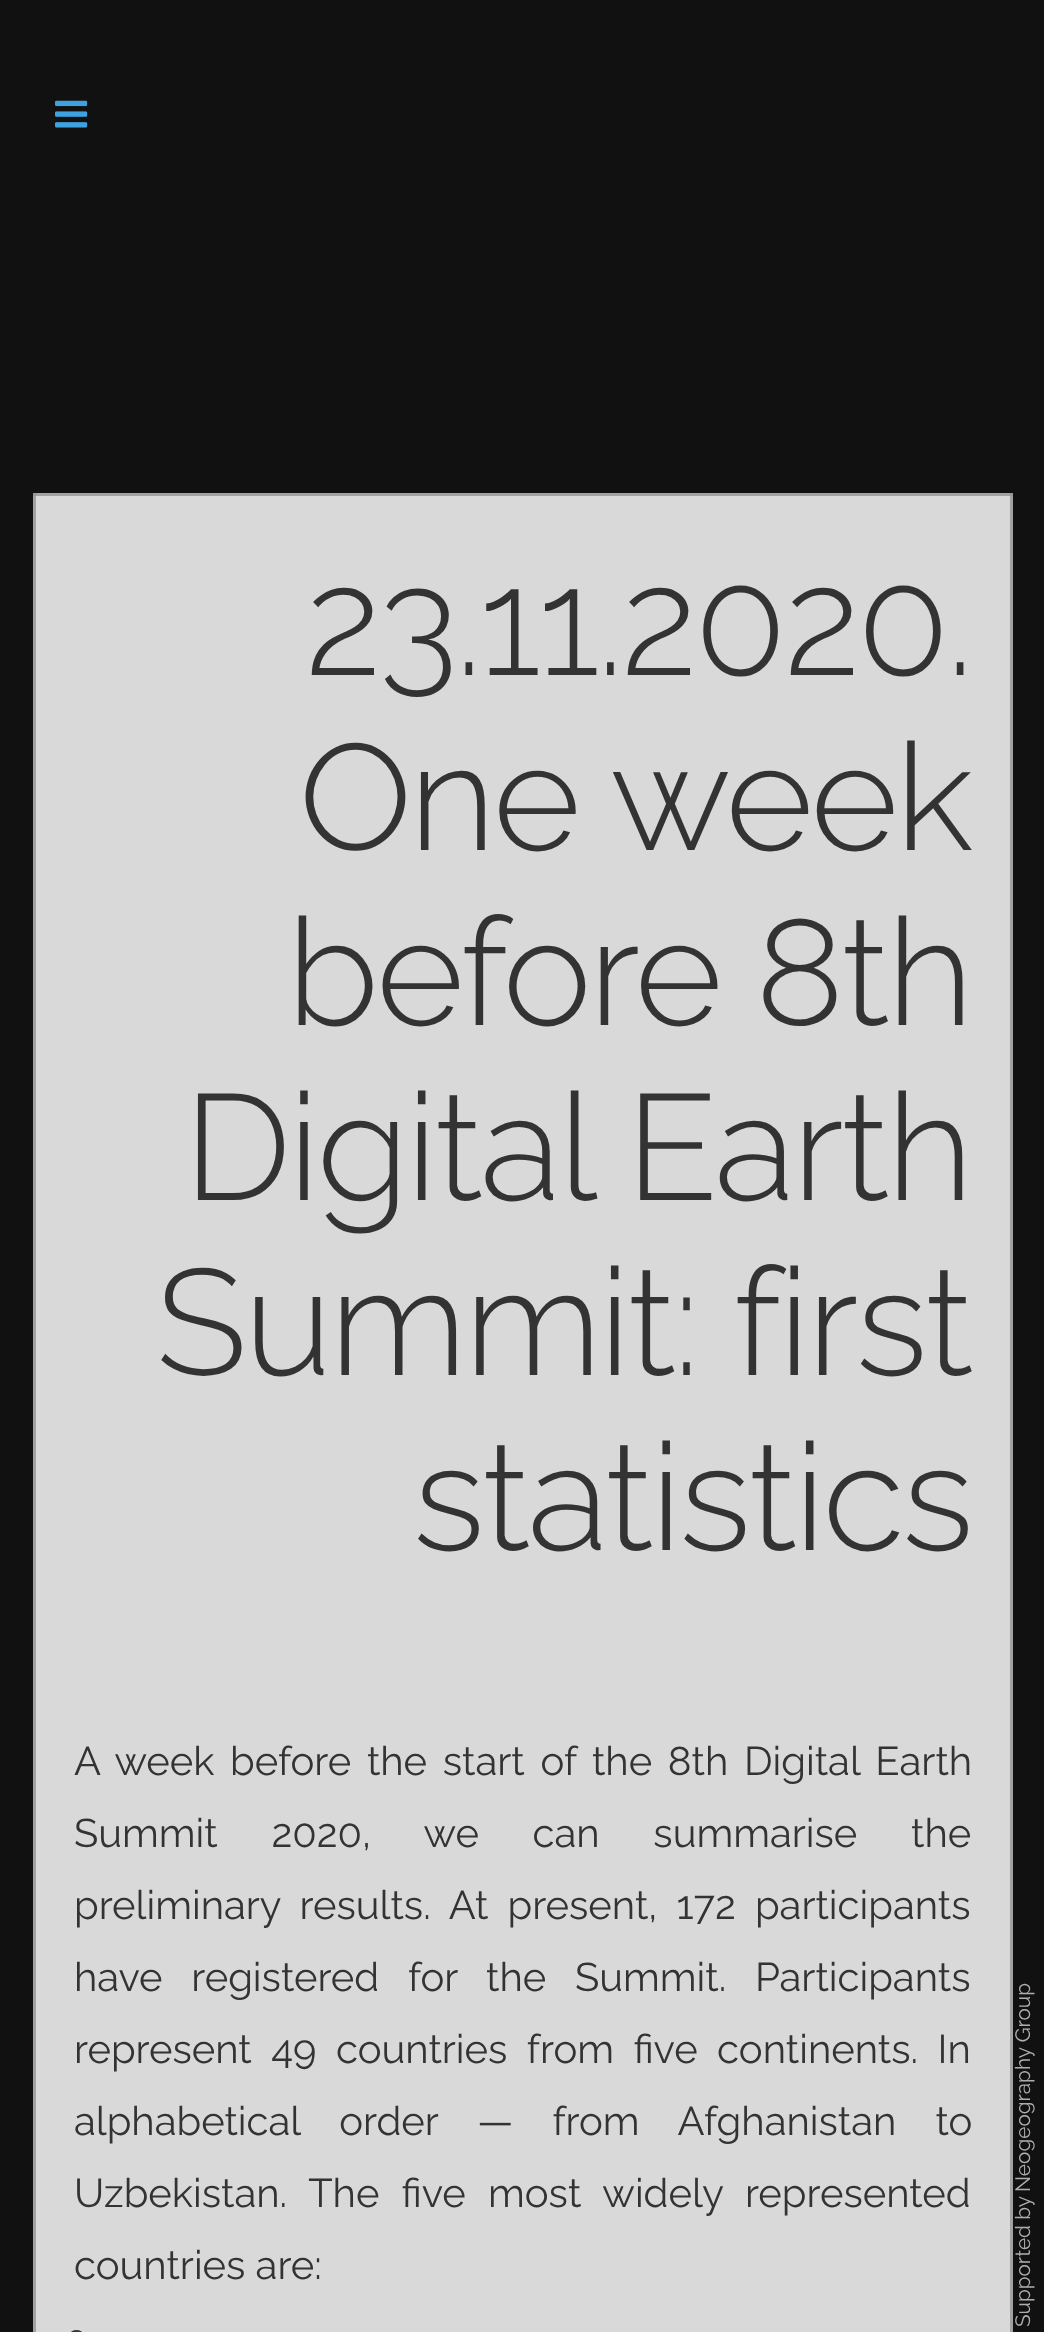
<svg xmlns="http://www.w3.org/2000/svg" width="1044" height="2332">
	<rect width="100%" height="100%" fill="#111111" />
	<image x="55" y="100" width="33" height="28" href="assets/img1.png" />
	<rect x="1010" y="493" width="3" height="1839" fill="#A2A2A2" />
	<rect x="33" y="493" width="3" height="1839" fill="#A2A2A2" />
	<rect x="36" y="496" width="974" height="1836" fill="#D9D9D9" />
	<rect x="33" y="493" width="980" height="3" fill="#A2A2A2" />
	<rect x="33" y="493" width="3" height="3" fill="#979797" />
	<rect x="1010" y="493" width="3" height="3" fill="#979797" />
	<g font-family="Raleway" font-size="150" font-weight="300" letter-spacing="-2.5" fill="#333333">
		<text x="305" y="675">23.11.2020.</text>
		<text x="299" y="850">One week</text>
		<text x="287" y="1025">before 8th</text>
		<text x="184" y="1200">Digital Earth</text>
		<text x="156" y="1375">Summit: first</text>
		<text x="413" y="1550">statistics</text>
	</g>
	<g font-family="Raleway" font-size="40" fill="#333333">
		<text x="74" y="1775" word-spacing="5.5">A week before the start of the 8th Digital Earth</text>
		<text x="74" y="1847" word-spacing="43.5">Summit 2020, we can summarise the</text>
		<text x="74" y="1919" word-spacing="9">preliminary results. At present, 172 participants</text>
		<text x="74" y="1991" word-spacing="18.5">have registered for the Summit. Participants</text>
		<text x="74" y="2063" word-spacing="9.25">represent 49 countries from five continents. In</text>
		<text x="74" y="2135" word-spacing="29">alphabetical order — from Afghanistan to</text>
		<text x="74" y="2207" word-spacing="12">Uzbekistan. The five most widely represented</text>
		<text x="74" y="2279">countries are:</text>
	</g>
	<rect x="70" y="2330" width="13" height="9" rx="6.5" fill="#373737" />
	<g font-family="Raleway" font-size="20.75" fill="#AEAEAE">
		<text x="1030" y="2192" transform="rotate(-90 1030 2192)">Neogeography Group</text>
		<text x="1030" y="2327" transform="rotate(-90 1030 2327)">Supported by</text>
	</g>
</svg>
